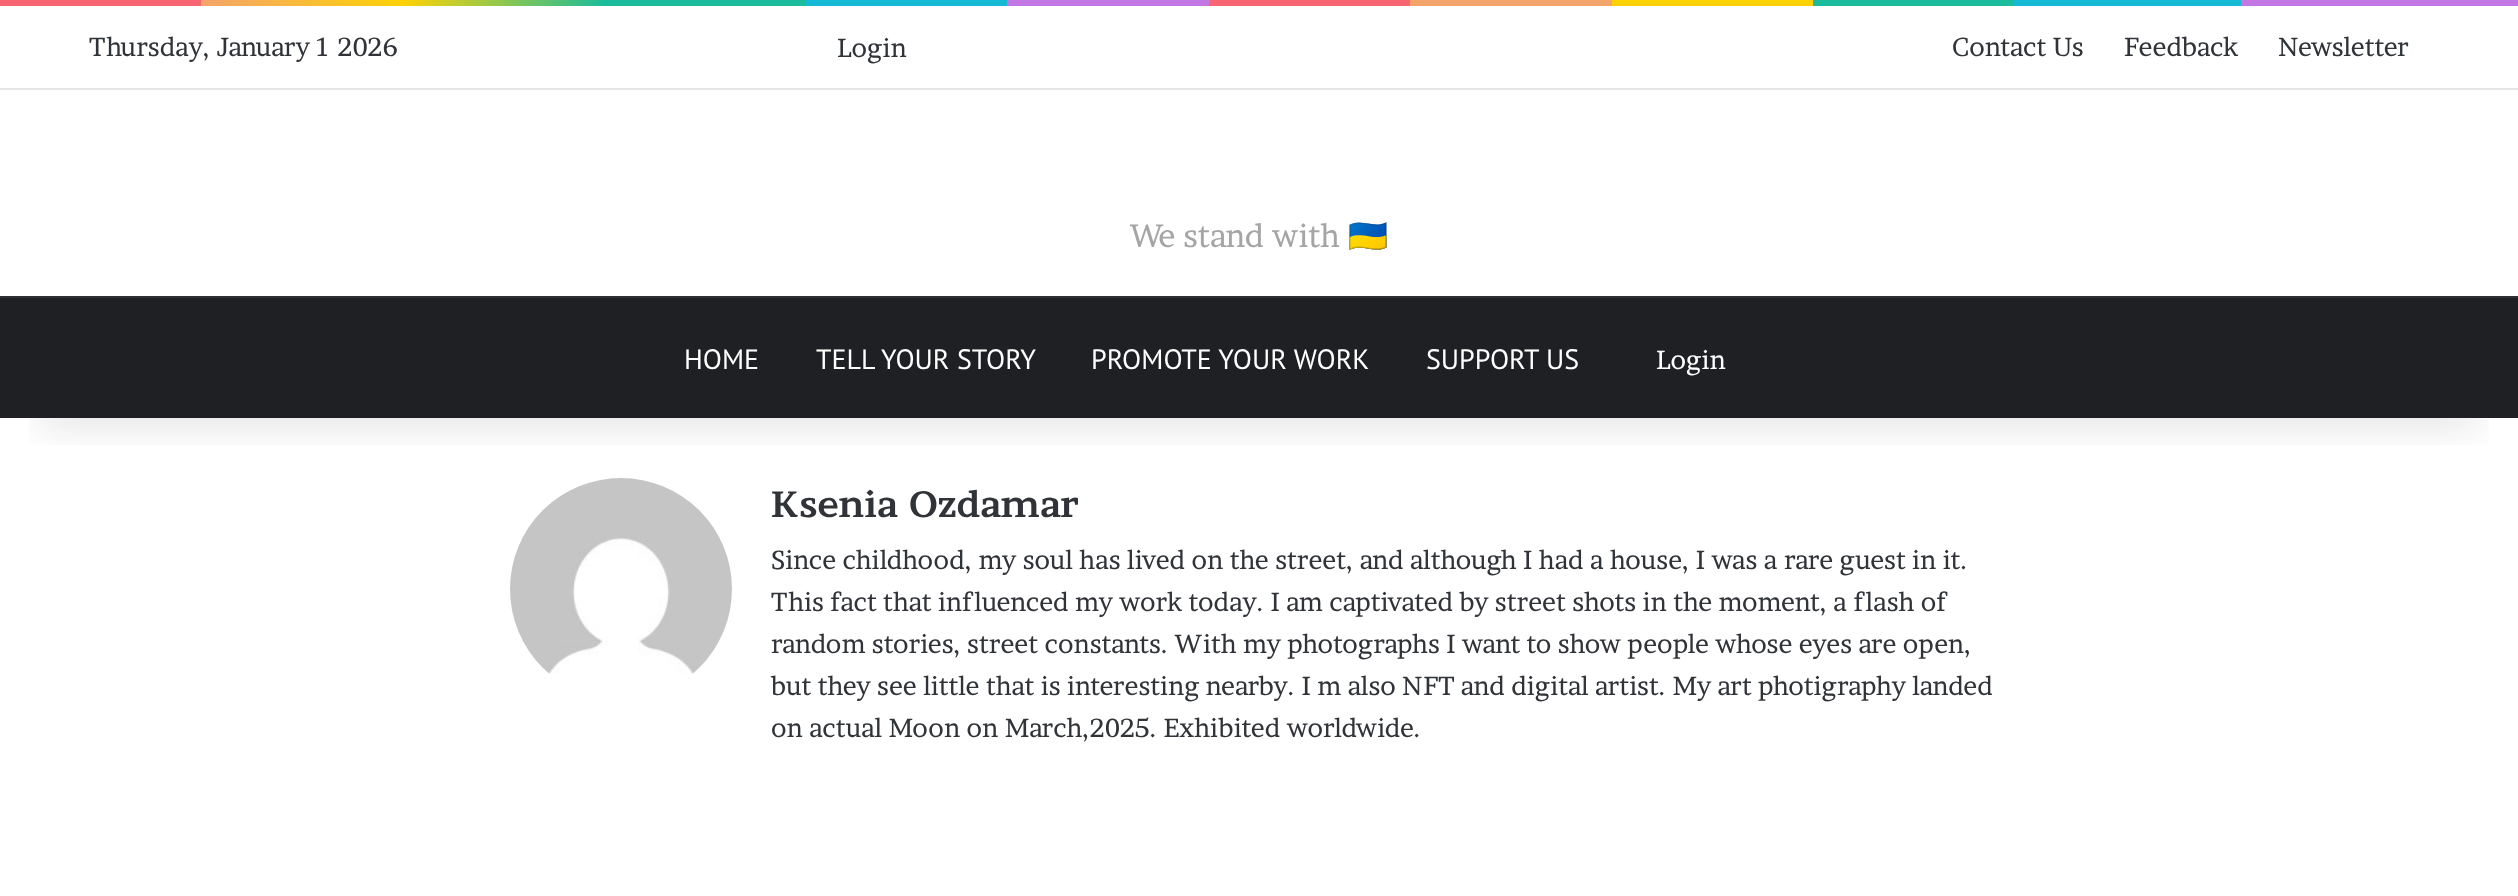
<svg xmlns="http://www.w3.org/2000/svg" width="2518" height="896">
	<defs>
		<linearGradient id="g1" gradientUnits="userSpaceOnUse" x1="0" y1="3" x2="2518" y2="3"><stop offset="0" stop-color="#F76570" /><stop offset="0.08" stop-color="#F76570" /><stop offset="0.08" stop-color="#F3A46B" /><stop offset="0.16" stop-color="#FFD205" /><stop offset="0.24" stop-color="#1BBC9B" /><stop offset="0.32" stop-color="#1BBC9B" /><stop offset="0.32" stop-color="#14B9D5" /><stop offset="0.4" stop-color="#14B9D5" /><stop offset="0.4" stop-color="#C377E4" /><stop offset="0.48" stop-color="#C377E4" /><stop offset="0.48" stop-color="#F76570" /><stop offset="0.56" stop-color="#F76570" /><stop offset="0.56" stop-color="#F3A46B" /><stop offset="0.64" stop-color="#F3A46B" /><stop offset="0.64" stop-color="#FFD205" /><stop offset="0.72" stop-color="#FFD205" /><stop offset="0.72" stop-color="#1BBC9B" /><stop offset="0.8" stop-color="#1BBC9B" /><stop offset="0.8" stop-color="#14B9D5" /><stop offset="0.89" stop-color="#14B9D5" /><stop offset="0.89" stop-color="#C377E4" /><stop offset="1" stop-color="#C377E4" /></linearGradient>
		<clipPath id="clip1"><rect x="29" y="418" width="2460" height="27" /></clipPath>
	</defs>
	<rect width="100%" height="100%" fill="#FFFFFF" />
	<rect x="0" y="0" width="2518" height="6" fill="url(#g1)" />
	<image x="510" y="478" width="222" height="196" href="assets/img1.png" />
	<g clip-path="url(#clip1)">
		<rect x="40" y="96" width="2438" height="332" fill="#000000" fill-opacity="0.1" filter="blur(20px)" />
	</g>
	<rect x="0" y="88" width="2518" height="2" fill="#E6E6E6" />
	<g font-family="Brawler" font-size="26" fill="#303338">
		<text x="89" y="56">Thursday, January 1 2026</text>
		<text x="837" y="57">Login</text>
		<text x="1952" y="56">Contact Us</text>
		<text x="2124" y="56">Feedback</text>
		<text x="2278" y="56">Newsletter</text>
	</g>
	<text x="1130" y="247" font-family="Brawler" font-size="32" fill="#A5A5A5">We stand with</text>
	<text x="1348" y="247" font-family="Noto Color Emoji" font-size="32" fill="#A5A5A5">🇺🇦</text>
	<rect x="0" y="298" width="2518" height="120" fill="#1F2024" />
	<rect x="0" y="296" width="2518" height="2" fill="#2F3033" />
	<g font-family="PT Sans" font-size="28" fill="#FFFFFF">
		<text x="684" y="369">HOME</text>
		<text x="816" y="369">TELL YOUR STORY</text>
		<text x="1091" y="369">PROMOTE YOUR WORK</text>
		<text x="1426" y="369">SUPPORT US</text>
	</g>
	<text x="1656" y="369" font-family="Brawler" font-size="26" fill="#FFFFFF">Login</text>
	<text x="771" y="517" font-family="Brawler" font-size="36" font-weight="700" fill="#303338">Ksenia Ozdamar</text>
	<g font-family="Brawler" font-size="26" fill="#303338">
		<text x="771" y="569">Since childhood, my soul has lived on the street, and although I had a house, I was a rare guest in it.</text>
		<text x="771" y="611">This fact that influenced my work today. I am captivated by street shots in the moment, a flash of</text>
		<text x="771" y="653">random stories, street constants. With my photographs I want to show people whose eyes are open,</text>
		<text x="771" y="695">but they see little that is interesting nearby. I m also NFT and digital artist. My art photigraphy landed</text>
		<text x="771" y="737">on actual Moon on March,2025. Exhibited worldwide.</text>
	</g>
</svg>
